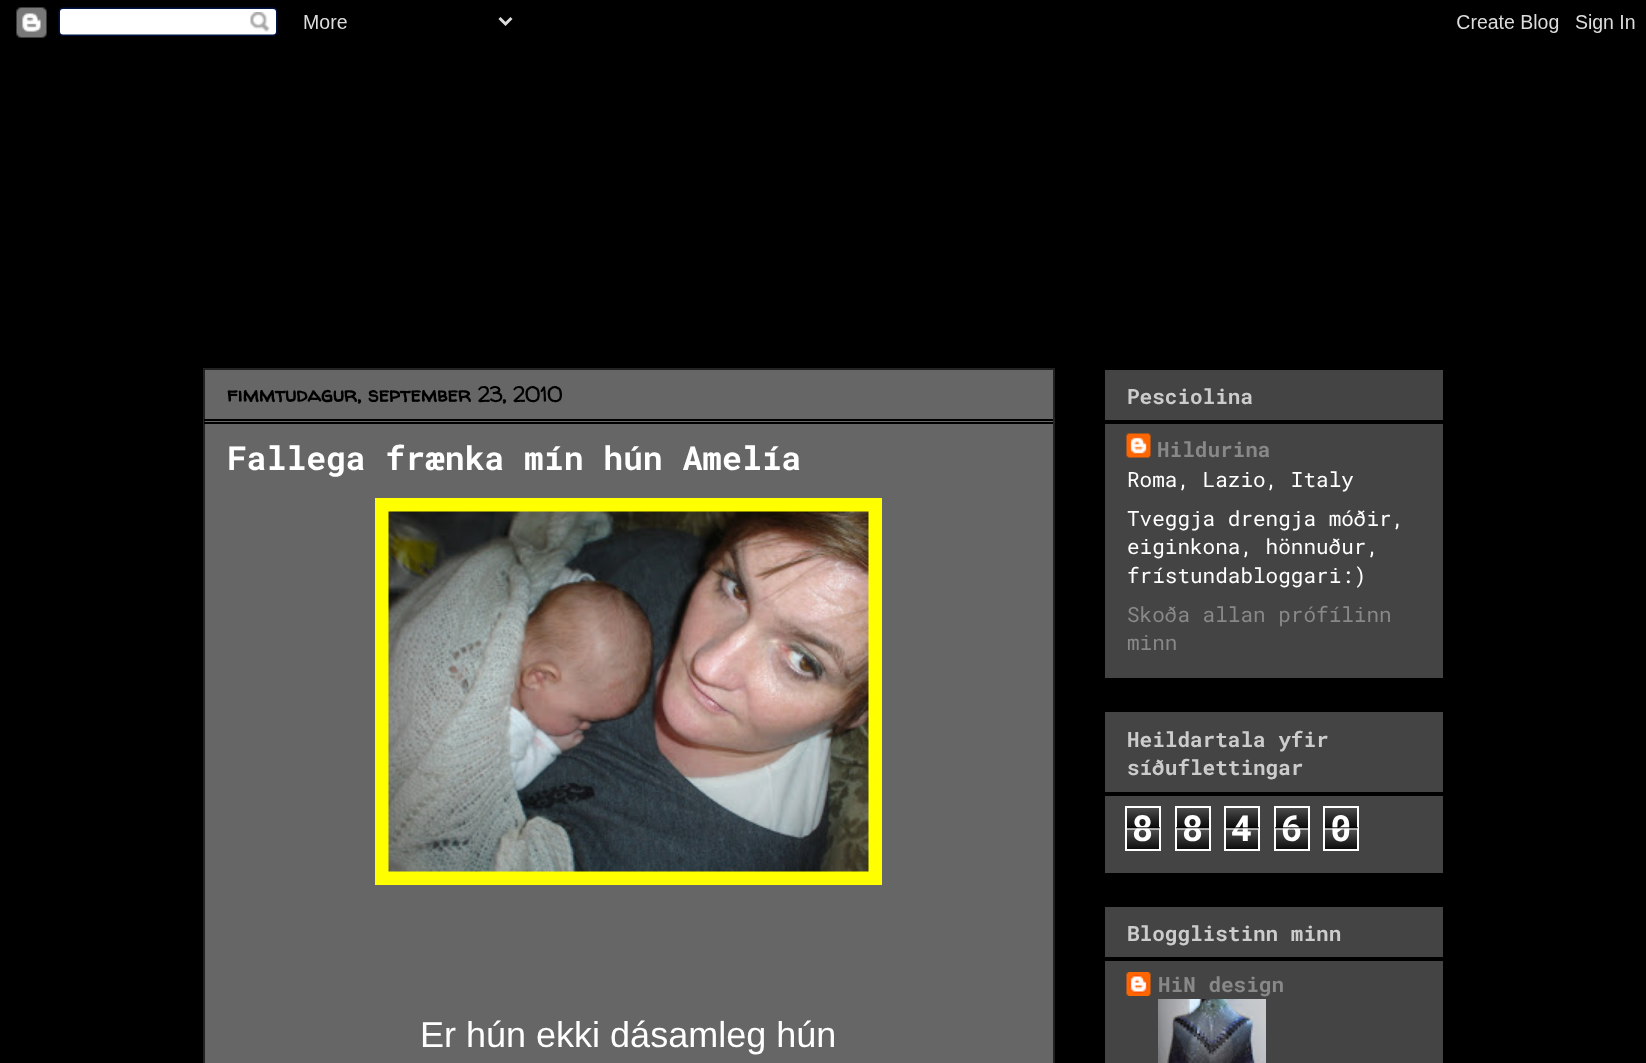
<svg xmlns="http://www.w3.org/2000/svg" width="1646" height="1063">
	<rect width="100%" height="100%" fill="#000000" />
	<image x="16" y="7" width="1619" height="31" href="assets/img1.png" />
	<rect x="204" y="369" width="850" height="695" fill="#666666" stroke="#222222" stroke-width="2" />
	<rect x="204" y="419" width="849" height="2" fill="#000000" />
	<text x="227" y="402" font-family="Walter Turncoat" font-size="21" font-weight="700" fill="#000000">fimmtudagur, september 23, 2010</text>
	<rect x="204" y="422" width="849" height="2" fill="#000000" />
	<text x="227" y="470" font-family="Roboto Mono" font-size="33" font-weight="700" fill="#FFFFFF">Fallega frænka mín hún Amelía</text>
	<rect x="375" y="498" width="507" height="387" fill="#FFFF00" />
	<image x="388" y="511" width="481" height="361" href="assets/img2.png" />
	<text x="420" y="1047" font-family="Liberation Sans" font-size="36" fill="#FFFFFF">Er hún ekki dásamleg hún</text>
	<rect x="1105" y="370" width="338" height="308" fill="#444444" />
	<text x="1127" y="404" font-family="Roboto Mono" font-size="21" font-weight="700" fill="#CCCCCC">Pesciolina</text>
	<rect x="1104" y="420" width="339" height="4" fill="#000000" />
	<image x="1126" y="433" width="25" height="25" href="assets/img3.png" />
	<text x="1157" y="457" font-family="Roboto Mono" font-size="21" font-weight="700" fill="#888888">Hildurina</text>
	<g font-family="Roboto Mono" font-size="21" fill="#FFFFFF">
		<text x="1127" y="487">Roma, Lazio, Italy</text>
		<text x="1127" y="526">Tveggja drengja móðir,</text>
		<text x="1127" y="554">eiginkona, hönnuður,</text>
		<text x="1127" y="583">frístundabloggari:)</text>
	</g>
	<g font-family="Roboto Mono" font-size="21" fill="#888888">
		<text x="1127" y="622">Skoða allan prófílinn</text>
		<text x="1127" y="650">minn</text>
	</g>
	<rect x="1105" y="712" width="338" height="161" fill="#444444" />
	<g font-family="Roboto Mono" font-size="21" font-weight="700" fill="#CCCCCC">
		<text x="1127" y="747">Heildartala yfir</text>
		<text x="1127" y="775">síðuflettingar</text>
	</g>
	<rect x="1104" y="792" width="339" height="4" fill="#000000" />
	<image x="1127" y="808" width="32" height="41" href="assets/img4.png" />
	<rect x="1126" y="807" width="34" height="43" fill="none" stroke="#FFFFFF" stroke-width="2" />
	<text x="1132" y="841" font-family="Roboto Mono" font-size="36" font-weight="700" fill="#FFFFFF">8</text>
	<rect x="1127" y="827" width="33" height="2" fill="#000000" fill-opacity="0.65" />
	<rect x="1127" y="828" width="33" height="2" fill="#FFFFFF" fill-opacity="0.65" />
	<image x="1177" y="808" width="32" height="41" href="assets/img5.png" />
	<rect x="1176" y="807" width="34" height="43" fill="none" stroke="#FFFFFF" stroke-width="2" />
	<text x="1182" y="841" font-family="Roboto Mono" font-size="36" font-weight="700" fill="#FFFFFF">8</text>
	<rect x="1176" y="827" width="33" height="2" fill="#000000" fill-opacity="0.65" />
	<rect x="1176" y="828" width="33" height="2" fill="#FFFFFF" fill-opacity="0.65" />
	<image x="1226" y="808" width="32" height="41" href="assets/img4.png" />
	<rect x="1225" y="807" width="34" height="43" fill="none" stroke="#FFFFFF" stroke-width="2" />
	<text x="1231" y="841" font-family="Roboto Mono" font-size="36" font-weight="700" fill="#FFFFFF">4</text>
	<rect x="1226" y="827" width="33" height="2" fill="#000000" fill-opacity="0.65" />
	<rect x="1226" y="828" width="33" height="2" fill="#FFFFFF" fill-opacity="0.65" />
	<image x="1276" y="808" width="32" height="41" href="assets/img5.png" />
	<rect x="1275" y="807" width="34" height="43" fill="none" stroke="#FFFFFF" stroke-width="2" />
	<text x="1281" y="841" font-family="Roboto Mono" font-size="36" font-weight="700" fill="#FFFFFF">6</text>
	<rect x="1275" y="827" width="33" height="2" fill="#000000" fill-opacity="0.65" />
	<rect x="1275" y="828" width="33" height="2" fill="#FFFFFF" fill-opacity="0.65" />
	<image x="1325" y="808" width="32" height="41" href="assets/img4.png" />
	<rect x="1324" y="807" width="34" height="43" fill="none" stroke="#FFFFFF" stroke-width="2" />
	<text x="1330" y="841" font-family="Roboto Mono" font-size="36" font-weight="700" fill="#FFFFFF">0</text>
	<rect x="1325" y="827" width="33" height="2" fill="#000000" fill-opacity="0.65" />
	<rect x="1325" y="828" width="33" height="2" fill="#FFFFFF" fill-opacity="0.65" />
	<rect x="1105" y="907" width="338" height="156" fill="#444444" />
	<text x="1127" y="941" font-family="Roboto Mono" font-size="21" font-weight="700" fill="#CCCCCC">Blogglistinn minn</text>
	<rect x="1104" y="957" width="339" height="4" fill="#000000" />
	<image x="1126" y="972" width="25" height="24" href="assets/img6.png" />
	<text x="1158" y="992" font-family="Roboto Mono" font-size="21" font-weight="700" fill="#888888">HiN design</text>
	<image x="1158" y="999" width="108" height="64" href="assets/img7.png" />
</svg>
